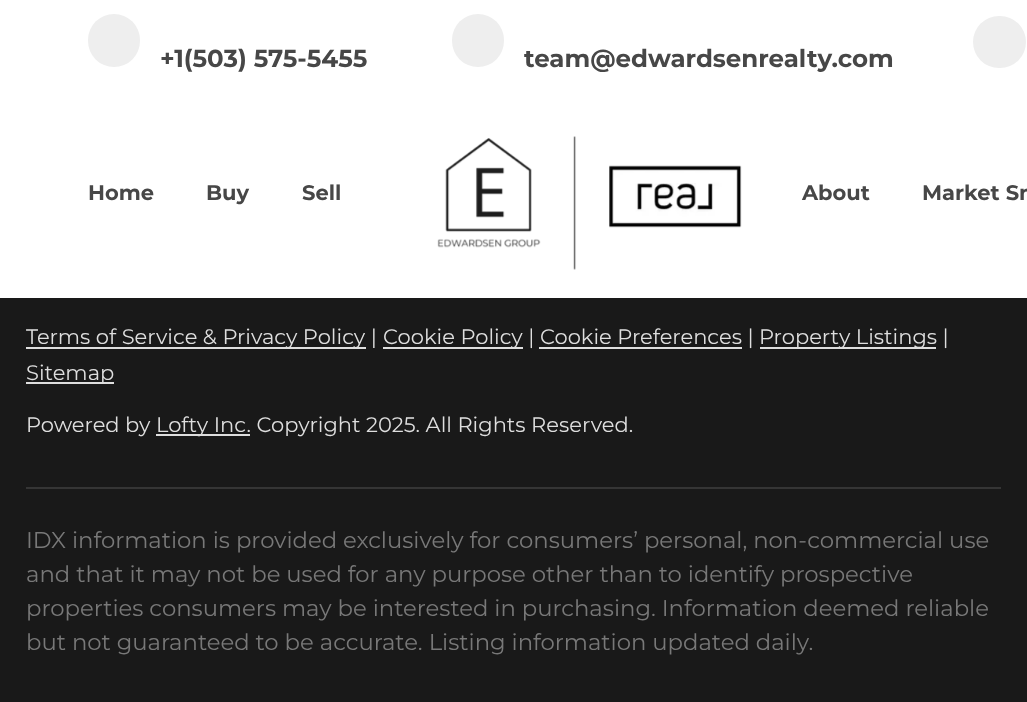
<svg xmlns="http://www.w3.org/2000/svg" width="1027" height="702">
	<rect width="100%" height="100%" fill="#191919" />
	<rect x="0" y="0" width="1027" height="298" fill="#FFFFFF" />
	<rect x="88" y="14" width="52" height="53" rx="26" fill="#EEEEEE" />
	<text x="160" y="67" font-family="Montserrat" font-size="24.5" font-weight="700" fill="#474747">+1(503) 575-5455</text>
	<rect x="452" y="14" width="52" height="53" rx="26" fill="#EEEEEE" />
	<text x="524" y="67" font-family="Montserrat" font-size="24.5" font-weight="700" fill="#474747">team@edwardsenrealty.com</text>
	<rect x="973" y="16" width="53" height="52" rx="26" fill="#EEEEEE" />
	<g font-family="Montserrat" font-size="21" font-weight="700" fill="#474747">
		<text x="88" y="200">Home</text>
		<text x="206" y="200">Buy</text>
		<text x="302" y="200">Sell</text>
	</g>
	<image x="437" y="136" width="305" height="134" href="assets/img1.png" />
	<g font-family="Montserrat" font-size="21" font-weight="700" fill="#474747">
		<text x="802" y="200">About</text>
		<text x="922" y="200">Market Sn</text>
	</g>
	<rect x="26" y="347" width="340" height="2" fill="#DEDEDE" />
	<text x="26" y="344" font-family="Montserrat" font-size="21" fill="#DEDEDE">Terms of Service &amp; Privacy Policy |</text>
	<rect x="383" y="347" width="140" height="2" fill="#DEDEDE" />
	<text x="383" y="344" font-family="Montserrat" font-size="21" fill="#DEDEDE">Cookie Policy | Cookie Preferences |</text>
	<rect x="760" y="347" width="176" height="2" fill="#DEDEDE" />
	<text x="759" y="344" font-family="Montserrat" font-size="21" fill="#DEDEDE">Property Listings |</text>
	<rect x="539" y="347" width="203" height="2" fill="#DEDEDE" />
	<rect x="26" y="382" width="88" height="2" fill="#DEDEDE" />
	<g font-family="Montserrat" font-size="21" fill="#DEDEDE">
		<text x="26" y="380">Sitemap</text>
		<text x="26" y="432">Powered by</text>
	</g>
	<rect x="156" y="434" width="94" height="2" fill="#DEDEDE" />
	<text x="156" y="432" font-family="Montserrat" font-size="21" fill="#DEDEDE">Lofty Inc. Copyright 2025. All Rights Reserved.</text>
	<rect x="26" y="487" width="975" height="2" fill="#353535" />
	<g font-family="Montserrat" font-size="22.75" fill="#787878">
		<text x="26" y="548">IDX information is provided exclusively for consumers’ personal, non-commercial use</text>
		<text x="26" y="582">and that it may not be used for any purpose other than to identify prospective</text>
		<text x="26" y="616">properties consumers may be interested in purchasing. Information deemed reliable</text>
		<text x="26" y="650">but not guaranteed to be accurate. Listing information updated daily.</text>
	</g>
</svg>
